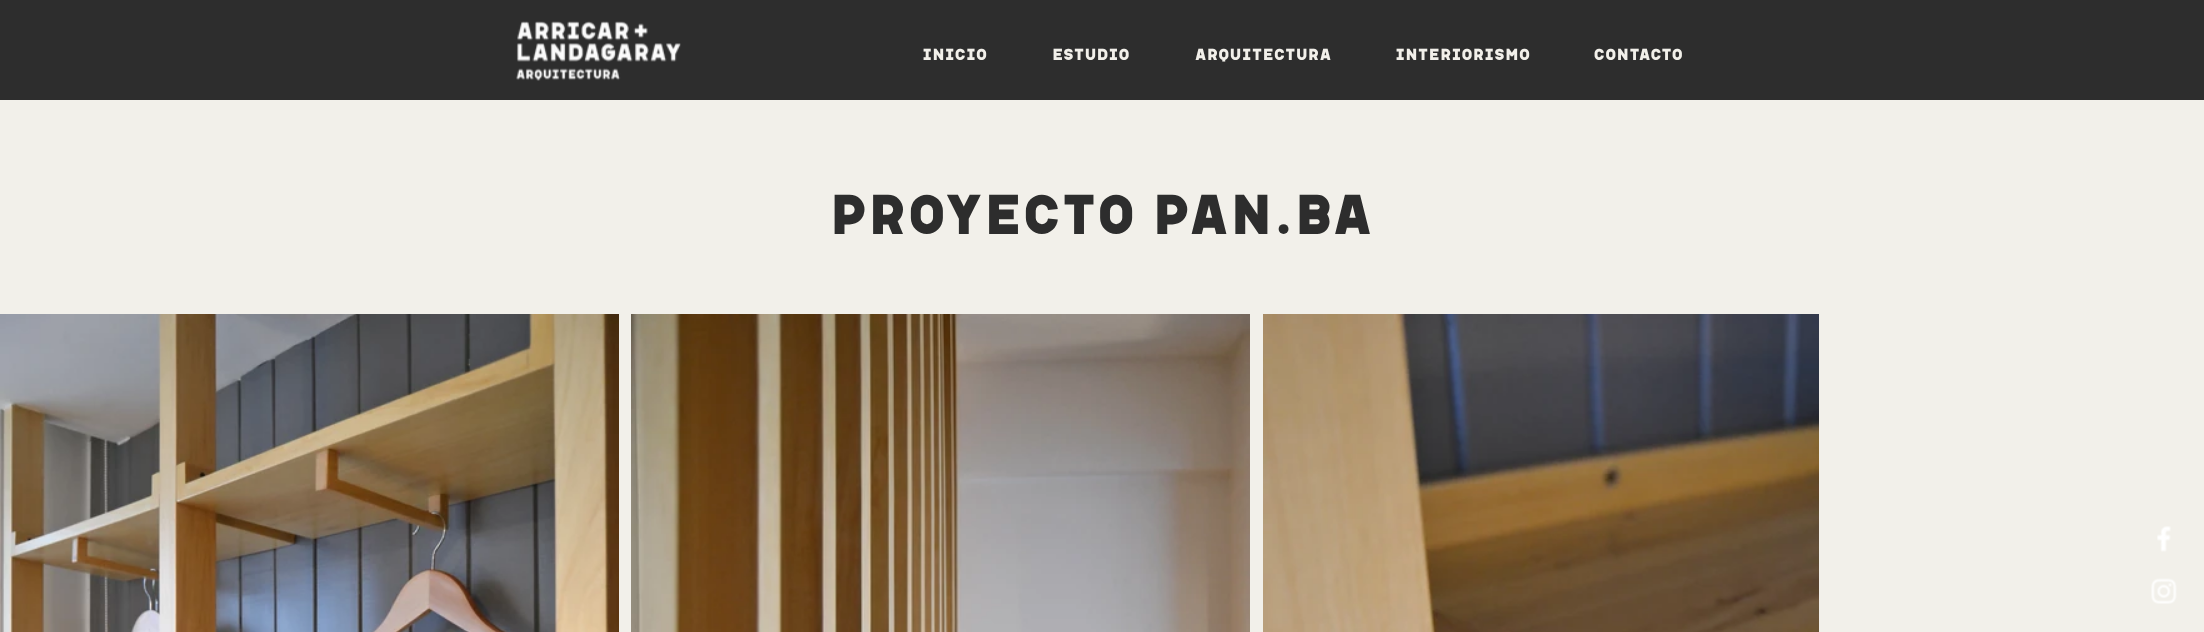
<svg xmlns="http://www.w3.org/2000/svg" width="2204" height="632">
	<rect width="100%" height="100%" fill="#F2F0EA" />
	<rect x="0" y="0" width="2204" height="100" fill="#2D2D2D" />
	<image x="516" y="21" width="165" height="60" href="assets/img1.png" />
	<g font-family="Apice" font-size="16.25" font-weight="700" fill="#F2F0EA">
		<text x="922" y="60">INICIO</text>
		<text x="1052" y="60">ESTUDIO</text>
		<text x="1194" y="60">ARQUITECTURA</text>
		<text x="1395" y="60">INTERIORISMO</text>
		<text x="1593" y="60">CONTACTO</text>
	</g>
	<text x="829" y="234" font-family="Apice" font-size="56.25" font-weight="700" fill="#2D2D2D">PROYECTO PAN.BA</text>
	<image x="0" y="314" width="619" height="318" href="assets/img2.png" />
	<image x="631" y="314" width="619" height="318" href="assets/img3.png" />
	<image x="1263" y="314" width="556" height="318" href="assets/img4.png" />
	<image x="2157" y="526" width="14" height="26" href="assets/img5.png" />
	<image x="2151" y="578" width="26" height="26" href="assets/img6.png" />
</svg>
